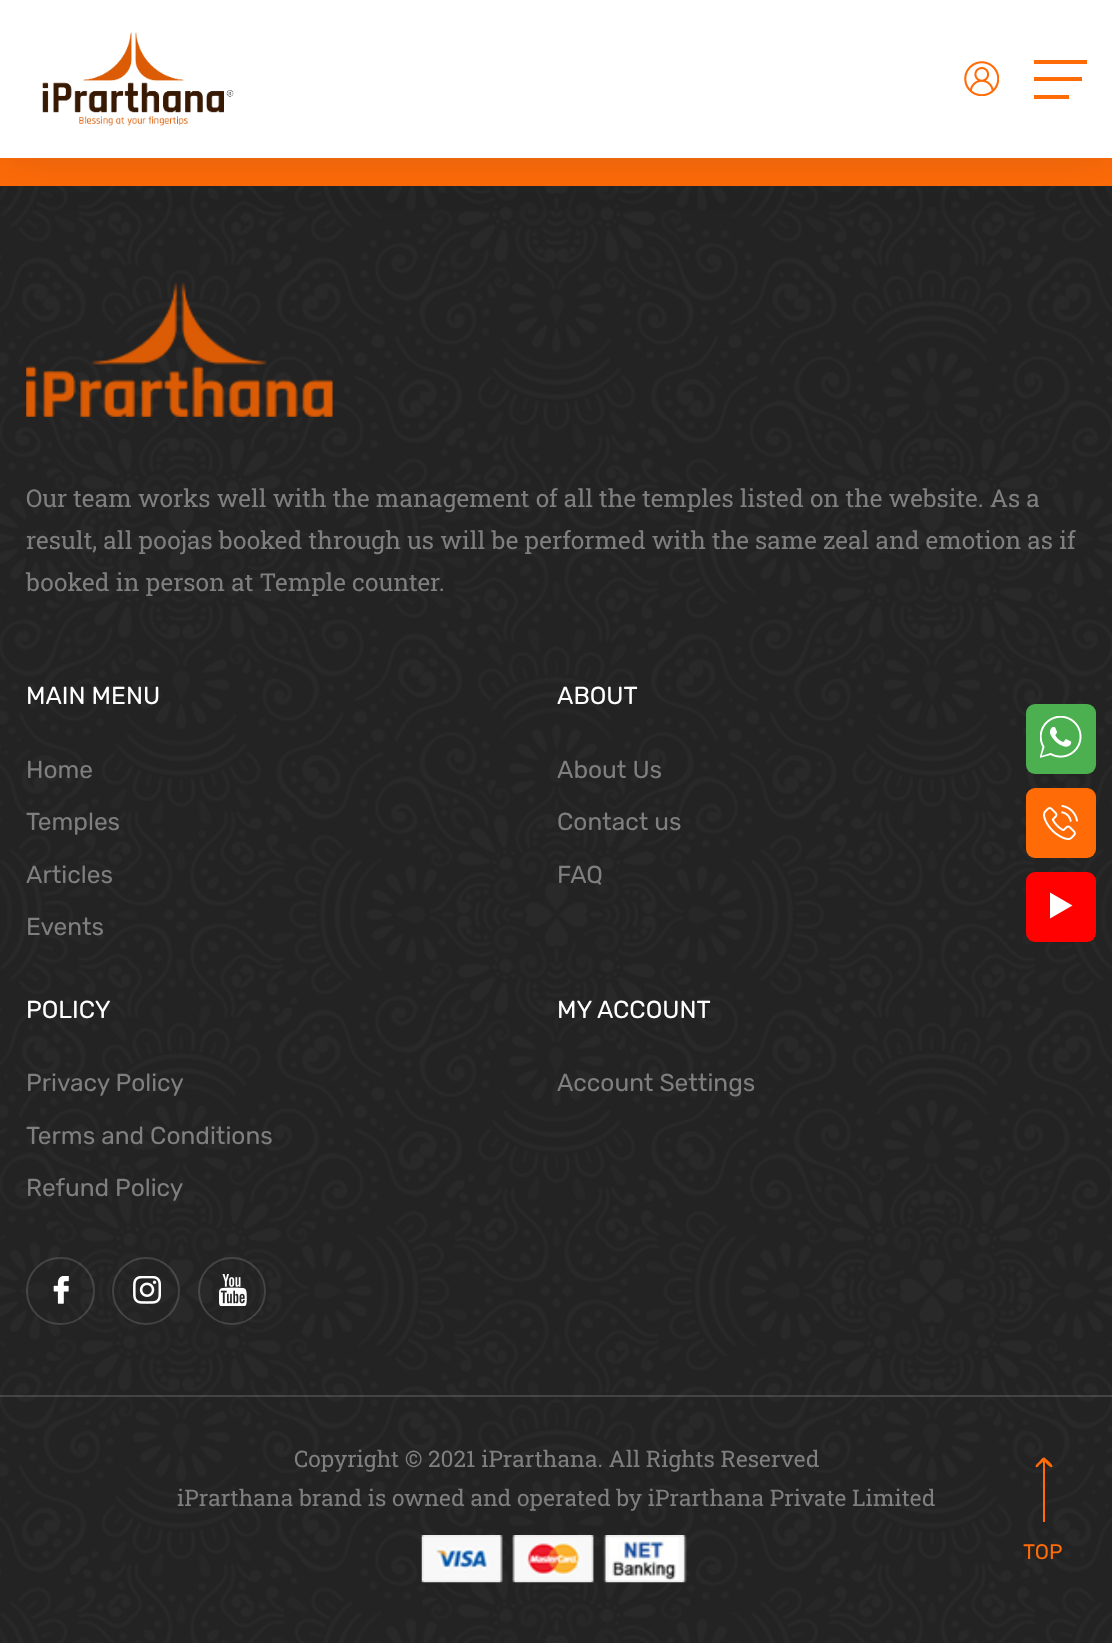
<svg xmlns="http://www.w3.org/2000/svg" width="1112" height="1643">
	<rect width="100%" height="100%" fill="#FF6B07" />
	<rect x="0" y="186" width="1112" height="1457" fill="#232323" />
	<image x="0" y="186" width="1112" height="1457" href="assets/img3.png" />
	<rect x="0" y="0" width="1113" height="158" fill="#122544" fill-opacity="0.15" filter="blur(26px)" />
	<rect x="0" y="0" width="1112" height="158" fill="#FFFFFF" />
	<image x="42" y="32" width="192" height="94" href="assets/img1.png" />
	<image x="964" y="61" width="35" height="35" href="assets/img2.png" />
	<rect x="1034" y="60" width="53" height="4" fill="#FF6B07" />
	<rect x="1034" y="77" width="48" height="4" fill="#FF6B07" />
	<rect x="1034" y="95" width="35" height="4" fill="#FF6B07" />
	<image x="26" y="282" width="307" height="135" href="assets/img4.png" />
	<g font-family="Roboto Slab" font-size="24.5" fill="#7F7F7F">
		<text x="26" y="507">Our team works well with the management of all the temples listed on the website. As a</text>
		<text x="26" y="549">result, all poojas booked through us will be performed with the same zeal and emotion as if</text>
		<text x="26" y="591">booked in person at Temple counter.</text>
	</g>
	<text x="26" y="704" font-family="Rubik" font-size="24.5" fill="#FFFFFF">MAIN MENU</text>
	<g font-family="Rubik" font-size="24.5" fill="#7F7F7F">
		<text x="26" y="778">Home</text>
		<text x="26" y="830">Temples</text>
		<text x="26" y="883">Articles</text>
		<text x="26" y="935">Events</text>
	</g>
	<text x="557" y="704" font-family="Rubik" font-size="24.5" fill="#FFFFFF">ABOUT</text>
	<g font-family="Rubik" font-size="24.5" fill="#7F7F7F">
		<text x="557" y="778">About Us</text>
		<text x="557" y="830">Contact us</text>
		<text x="557" y="883">FAQ</text>
	</g>
	<text x="26" y="1018" font-family="Rubik" font-size="24.5" fill="#FFFFFF">POLICY</text>
	<g font-family="Rubik" font-size="24.5" fill="#7F7F7F">
		<text x="26" y="1091">Privacy Policy</text>
		<text x="26" y="1144">Terms and Conditions</text>
		<text x="26" y="1196">Refund Policy</text>
	</g>
	<text x="557" y="1018" font-family="Rubik" font-size="24.5" fill="#FFFFFF">MY ACCOUNT</text>
	<text x="557" y="1091" font-family="Rubik" font-size="24.5" fill="#7F7F7F">Account Settings</text>
	<rect x="27" y="1258" width="67" height="66" rx="33" fill="none" stroke="#FFFFFF" stroke-opacity="0.15" stroke-width="2" />
	<image x="53" y="1276" width="16" height="28" href="assets/img5.png" />
	<circle cx="146" cy="1291" r="33" fill="none" stroke="#FFFFFF" stroke-opacity="0.15" stroke-width="2" />
	<image x="133" y="1276" width="28" height="28" href="assets/img6.png" />
	<circle cx="232" cy="1291" r="33" fill="none" stroke="#FFFFFF" stroke-opacity="0.15" stroke-width="2" />
	<image x="219" y="1274" width="28" height="32" href="assets/img7.png" />
	<rect x="0" y="1395" width="1112" height="2" fill="#FFFFFF" fill-opacity="0.15" />
	<g font-family="Roboto Slab" font-size="22.75" fill="#7F7F7F">
		<text x="294" y="1467">Copyright © 2021 iPrarthana. All Rights Reserved</text>
		<text x="177" y="1506">iPrarthana brand is owned and operated by iPrarthana Private Limited</text>
	</g>
	<image x="421" y="1535" width="266" height="48" href="assets/img8.png" />
	<rect x="1026" y="704" width="70" height="70" rx="9" fill="#4CAF50" />
	<image x="1040" y="716" width="42" height="42" href="assets/img9.png" />
	<rect x="1026" y="788" width="70" height="70" rx="9" fill="#FF6B07" />
	<image x="1043" y="805" width="35" height="35" href="assets/img10.png" />
	<rect x="1026" y="872" width="70" height="70" rx="9" fill="#FF0101" />
	<path d="M1050 918.5L1072.5 905.5L1050 892.5Z" fill="#FFFFFF" fill-rule="evenodd" />
	<path d="M1045 1458C1046 1459 1055 1466 1052 1467C1050 1468 1046 1463 1045 1462V1521C1045 1522 1045 1522 1044 1522C1043 1522 1043 1522 1043 1521V1462L1039 1465C1039 1466 1037 1468 1036 1467C1034 1466 1039 1462 1039 1462C1040 1461 1043 1456 1045 1458Z" fill="#FF6B07" />
	<text x="1023" y="1559" font-family="Rubik" font-size="21" fill="#FF6B07">TOP</text>
</svg>
